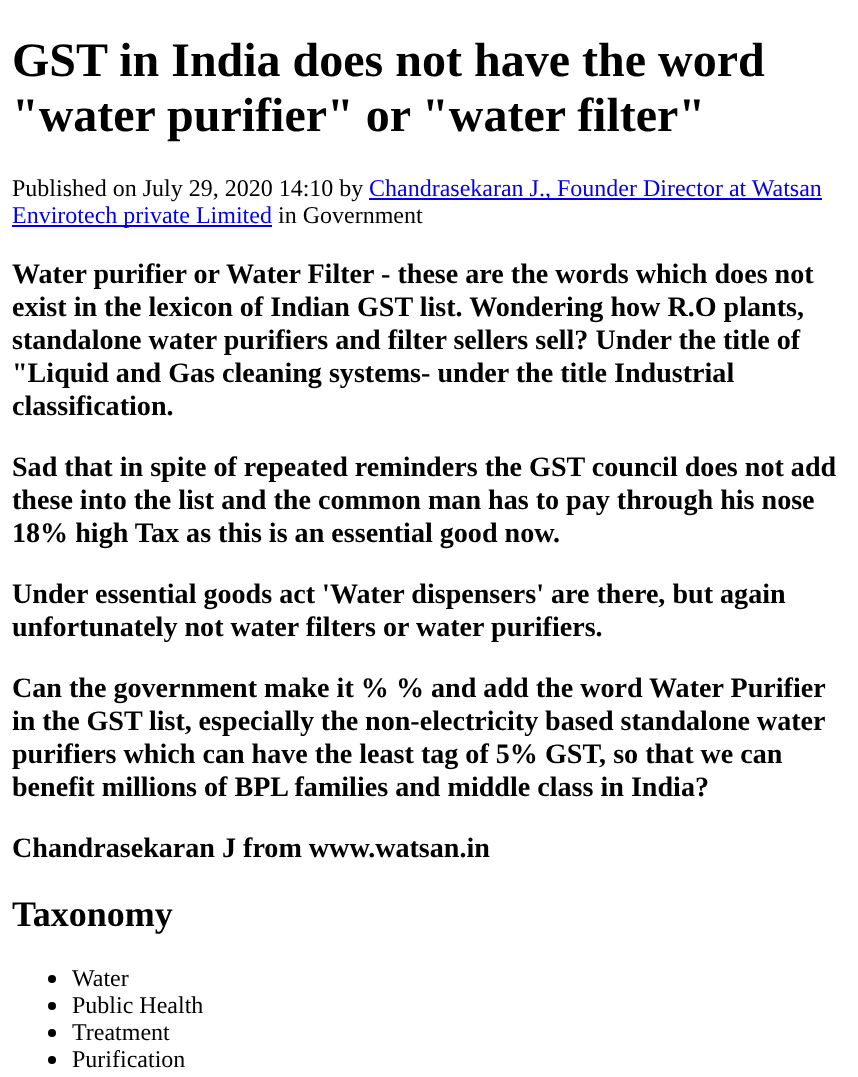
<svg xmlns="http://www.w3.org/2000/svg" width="858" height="1077">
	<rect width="100%" height="100%" fill="#FFFFFF" />
	<g font-family="Liberation Serif" font-size="48" font-weight="700" fill="#000000">
		<text x="12" y="76">GST in India does not have the word</text>
		<text x="12" y="131">"water purifier" or "water filter"</text>
	</g>
	<text x="12" y="196" font-family="Liberation Serif" font-size="24" fill="#000000">Published on July 29, 2020 14:10 by</text>
	<rect x="369" y="198" width="453" height="2" fill="#0000EE" />
	<text x="369" y="196" font-family="Liberation Serif" font-size="24" fill="#0000EE">Chandrasekaran J., Founder Director at Watsan</text>
	<rect x="12" y="225" width="260" height="2" fill="#0000EE" />
	<text x="12" y="223" font-family="Liberation Serif" font-size="24" fill="#0000EE">Envirotech private Limited</text>
	<text x="278" y="223" font-family="Liberation Serif" font-size="24" fill="#000000">in Government</text>
	<g font-family="Liberation Serif" font-size="28.1" font-weight="700" fill="#000000">
		<text x="12" y="283">Water purifier or Water Filter - these are the words which does not</text>
		<text x="12" y="316">exist in the lexicon of Indian GST list. Wondering how R.O plants,</text>
		<text x="12" y="349">standalone water purifiers and filter sellers sell? Under the title of</text>
		<text x="12" y="382">"Liquid and Gas cleaning systems- under the title Industrial</text>
		<text x="12" y="415">classification.</text>
		<text x="12" y="476">Sad that in spite of repeated reminders the GST council does not add</text>
		<text x="12" y="509">these into the list and the common man has to pay through his nose</text>
		<text x="12" y="542">18% high Tax as this is an essential good now.</text>
		<text x="12" y="603">Under essential goods act 'Water dispensers' are there, but again</text>
		<text x="12" y="636">unfortunately not water filters or water purifiers.</text>
		<text x="12" y="697">Can the government make it % % and add the word Water Purifier</text>
		<text x="12" y="730" word-spacing="-0.25">in the GST list, especially the non-electricity based standalone water</text>
		<text x="12" y="763">purifiers which can have the least tag of 5% GST, so that we can</text>
		<text x="12" y="796">benefit millions of BPL families and middle class in India?</text>
		<text x="12" y="857">Chandrasekaran J from www.watsan.in</text>
	</g>
	<text x="12" y="926" font-family="Liberation Serif" font-size="36" font-weight="700" fill="#000000">Taxonomy</text>
	<circle cx="52" cy="979" r="4" fill="#000000" />
	<text x="72" y="986" font-family="Liberation Serif" font-size="24" fill="#000000">Water</text>
	<circle cx="52" cy="1006" r="4" fill="#000000" />
	<text x="72" y="1013" font-family="Liberation Serif" font-size="24" fill="#000000">Public Health</text>
	<circle cx="52" cy="1033" r="4" fill="#000000" />
	<text x="72" y="1040" font-family="Liberation Serif" font-size="24" fill="#000000">Treatment</text>
	<circle cx="52" cy="1060" r="4" fill="#000000" />
	<text x="72" y="1067" font-family="Liberation Serif" font-size="24" fill="#000000">Purification</text>
</svg>
